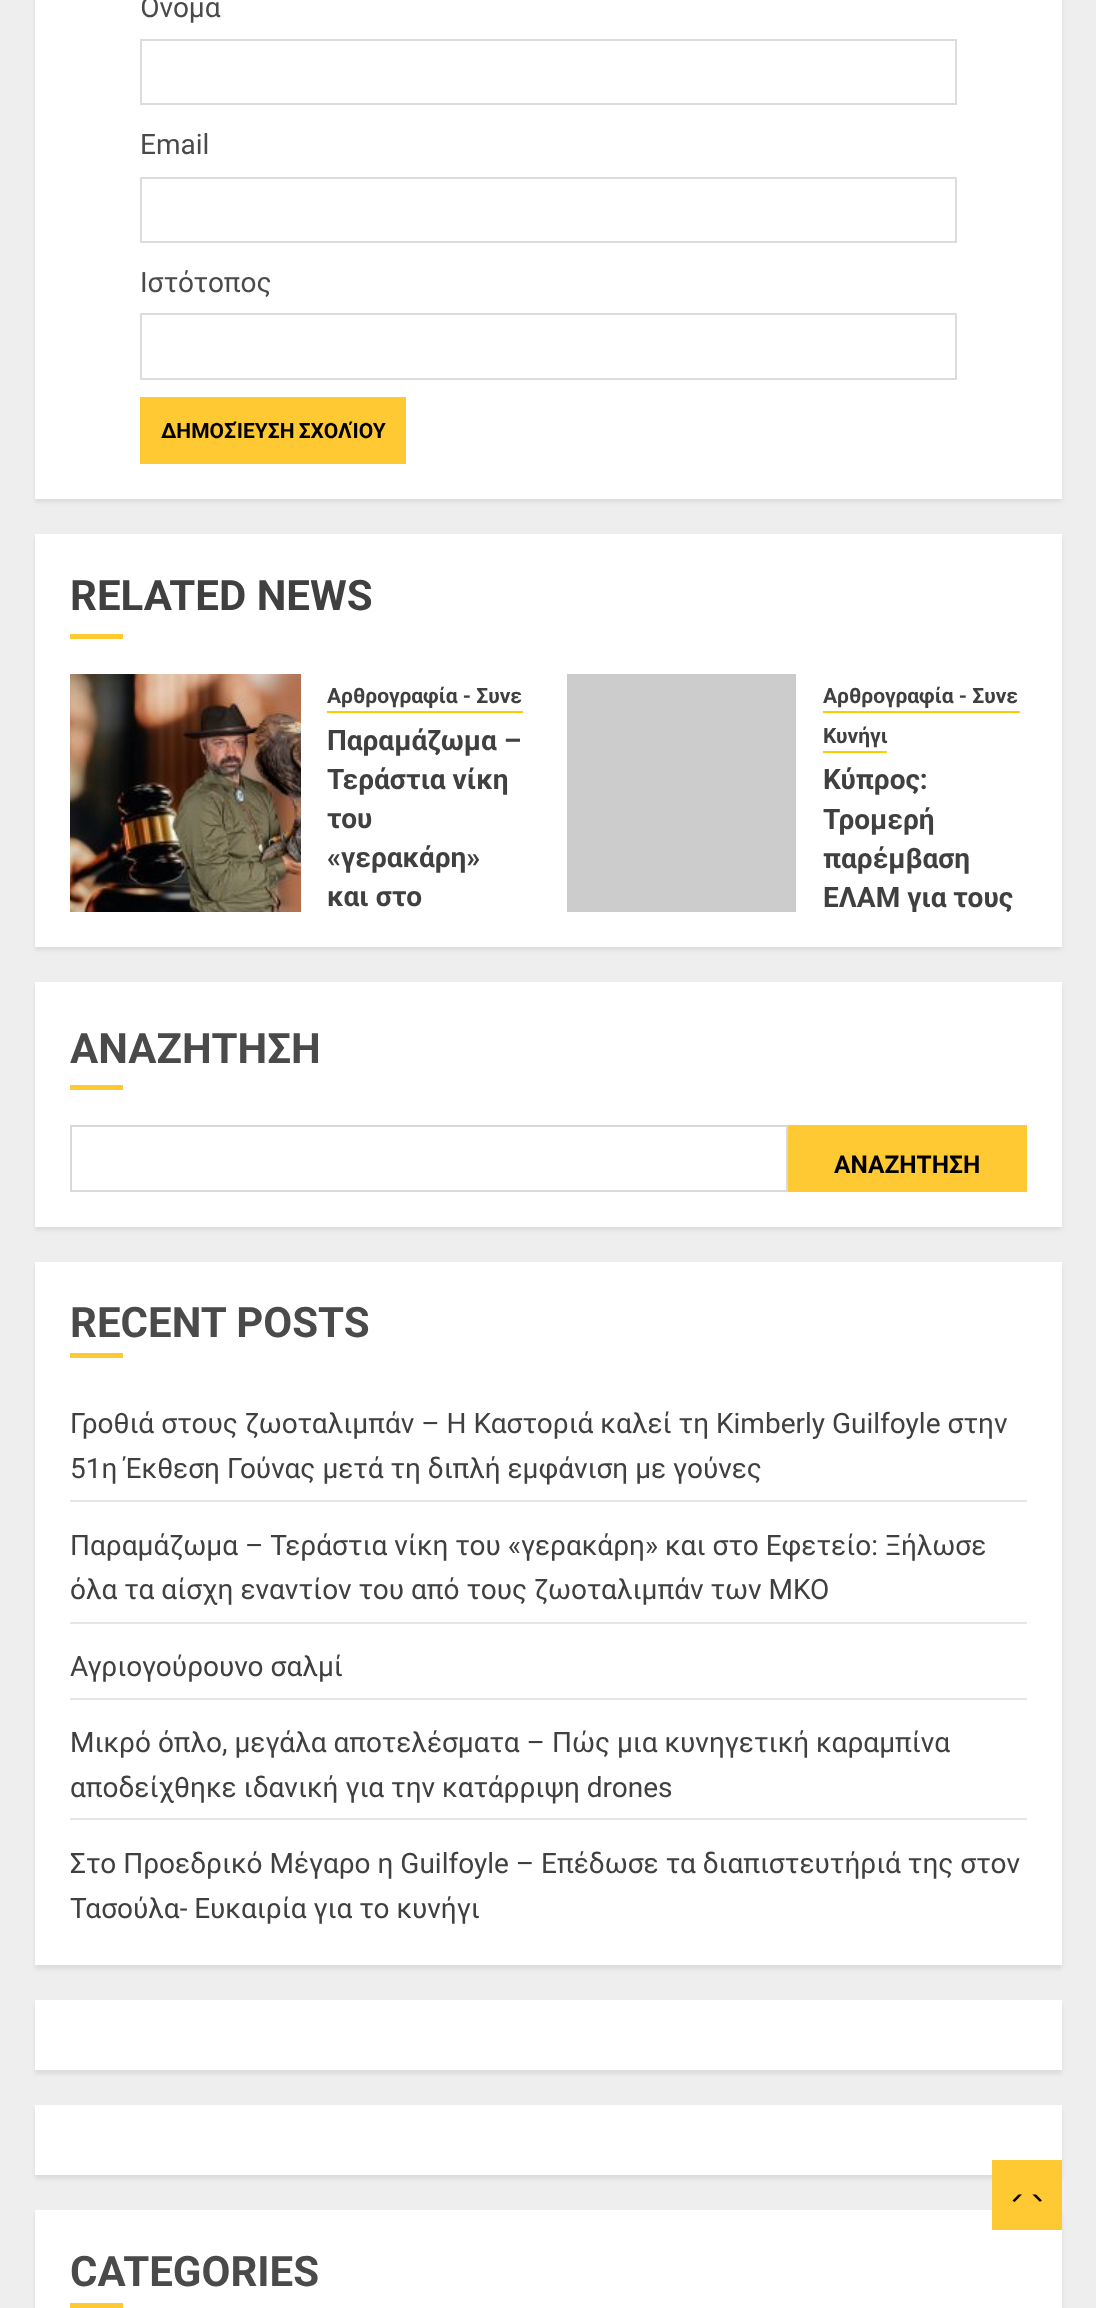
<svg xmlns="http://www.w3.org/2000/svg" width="1096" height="2308">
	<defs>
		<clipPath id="clip1"><rect x="796" y="674" width="224" height="238" /></clipPath>
	</defs>
	<rect width="100%" height="100%" fill="#EEEEEE" />
	<rect x="35" y="-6" width="1027" height="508" fill="#000000" fill-opacity="0.08" filter="blur(2px)" />
	<rect x="35" y="0" width="1027" height="499" fill="#FFFFFF" />
	<text x="140" y="17" font-family="Roboto" font-size="28" fill="#4A4A4A">Όνομα</text>
	<rect x="141" y="40" width="815" height="64" fill="none" stroke="#DCDCDC" stroke-width="2" />
	<text x="140" y="154" font-family="Roboto" font-size="28" fill="#4A4A4A">Email</text>
	<rect x="141" y="178" width="815" height="64" fill="none" stroke="#DCDCDC" stroke-width="2" />
	<text x="140" y="292" font-family="Roboto" font-size="28" fill="#4A4A4A">Ιστότοπος</text>
	<rect x="141" y="314" width="815" height="65" fill="none" stroke="#DCDCDC" stroke-width="2" />
	<rect x="140" y="397" width="266" height="67" fill="#FFC934" />
	<text x="161" y="438" word-spacing="-1" font-family="Roboto" font-size="21" font-weight="700" fill="#000000">ΔΗΜΟΣΊΕΥΣΗ ΣΧΟΛΊΟΥ</text>
	<rect x="35" y="537" width="1027" height="413" fill="#000000" fill-opacity="0.08" filter="blur(2px)" />
	<rect x="35" y="534" width="1027" height="413" fill="#FFFFFF" />
	<text x="70" y="610" font-family="Roboto" font-size="42" font-weight="700" fill="#404040">RELATED NEWS</text>
	<rect x="70" y="634" width="53" height="5" fill="#FFC934" />
	<image x="70" y="674" width="231" height="238" href="assets/img1.png" />
	<rect x="327" y="711" width="196" height="2" fill="#FFCC00" />
	<text x="327" y="703" font-family="Roboto" font-size="21" font-weight="700" fill="#404040">Αρθρογραφία - Συνε</text>
	<g font-family="Roboto" font-size="28" font-weight="700" fill="#404040">
		<text x="327" y="750">Παραμάζωμα –</text>
		<text x="327" y="789">Τεράστια νίκη</text>
		<text x="327" y="828">του</text>
		<text x="327" y="867">«γερακάρη»</text>
		<text x="327" y="906">και στο</text>
	</g>
	<rect x="567" y="674" width="229" height="238" fill="#CCCCCC" />
	<rect x="823" y="711" width="197" height="2" fill="#FFCC00" />
	<text x="823" y="703" font-family="Roboto" font-size="21" font-weight="700" fill="#404040">Αρθρογραφία - Συνε</text>
	<rect x="823" y="751" width="64" height="2" fill="#FFCC00" />
	<text x="823" y="743" font-family="Roboto" font-size="21" font-weight="700" fill="#404040">Κυνήγι</text>
	<g font-family="Roboto" font-size="28" font-weight="700" fill="#404040">
		<text x="823" y="789">Κύπρος:</text>
		<text x="823" y="829">Τρομερή</text>
		<text x="823" y="868">παρέμβαση</text>
	</g>
	<g clip-path="url(#clip1)">
		<text x="823" y="907" font-family="Roboto" font-size="28" font-weight="700" fill="#404040">ΕΛΑΜ για τους</text>
	</g>
	<rect x="35" y="985" width="1027" height="245" fill="#000000" fill-opacity="0.08" filter="blur(2px)" />
	<rect x="35" y="982" width="1027" height="245" fill="#FFFFFF" />
	<text x="70" y="1063" font-family="Roboto" font-size="42" font-weight="700" fill="#4A4A4A">ΑΝΑΖΗΤΗΣΗ</text>
	<rect x="70" y="1085" width="53" height="5" fill="#FFC934" />
	<rect x="71" y="1126" width="716" height="65" fill="none" stroke="#D9D9D9" stroke-width="2" />
	<rect x="788" y="1125" width="239" height="67" fill="#FFC934" />
	<text x="834" y="1173" font-family="Roboto" font-size="24.5" font-weight="700" fill="#000000">ΑΝΑΖΗΤΗΣΗ</text>
	<rect x="35" y="1265" width="1027" height="704" fill="#000000" fill-opacity="0.08" filter="blur(2px)" />
	<rect x="35" y="1262" width="1027" height="703" fill="#FFFFFF" />
	<text x="70" y="1337" word-spacing="-1" font-family="Roboto" font-size="42" font-weight="700" fill="#4A4A4A">RECENT POSTS</text>
	<rect x="70" y="1353" width="53" height="5" fill="#FFC934" />
	<rect x="70" y="1500" width="957" height="2" fill="#E6E6E6" />
	<g font-family="Roboto" font-size="28" fill="#404040">
		<text x="70" y="1433">Γροθιά στους ζωοταλιμπάν – Η Καστοριά καλεί τη Kimberly Guilfoyle στην</text>
		<text x="70" y="1478">51η Έκθεση Γούνας μετά τη διπλή εμφάνιση με γούνες</text>
	</g>
	<rect x="70" y="1622" width="957" height="2" fill="#E6E6E6" />
	<g font-family="Roboto" font-size="28" fill="#404040">
		<text x="70" y="1555">Παραμάζωμα – Τεράστια νίκη του «γερακάρη» και στο Εφετείο: Ξήλωσε</text>
		<text x="70" y="1599">όλα τα αίσχη εναντίον του από τους ζωοταλιμπάν των ΜΚΟ</text>
	</g>
	<rect x="70" y="1698" width="957" height="2" fill="#E6E6E6" />
	<text x="70" y="1676" font-family="Roboto" font-size="28" fill="#404040">Αγριογούρουνο σαλμί</text>
	<rect x="70" y="1818" width="957" height="2" fill="#E6E6E6" />
	<g font-family="Roboto" font-size="28" fill="#404040">
		<text x="70" y="1752">Μικρό όπλο, μεγάλα αποτελέσματα – Πώς μια κυνηγετική καραμπίνα</text>
		<text x="70" y="1797">αποδείχθηκε ιδανική για την κατάρριψη drones</text>
		<text x="70" y="1873">Στο Προεδρικό Μέγαρο η Guilfoyle – Επέδωσε τα διαπιστευτήριά της στον</text>
		<text x="70" y="1918">Τασούλα- Ευκαιρία για το κυνήγι</text>
	</g>
	<rect x="35" y="2004" width="1027" height="70" fill="#000000" fill-opacity="0.08" filter="blur(2px)" />
	<rect x="35" y="2000" width="1027" height="70" fill="#FFFFFF" />
	<rect x="35" y="2109" width="1027" height="70" fill="#000000" fill-opacity="0.08" filter="blur(2px)" />
	<rect x="35" y="2105" width="1027" height="70" fill="#FFFFFF" />
	<rect x="35" y="2214" width="1027" height="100" fill="#000000" fill-opacity="0.08" filter="blur(2px)" />
	<rect x="35" y="2210" width="1027" height="98" fill="#FFFFFF" />
	<text x="70" y="2286" font-family="Roboto" font-size="42" font-weight="700" fill="#4A4A4A">CATEGORIES</text>
	<rect x="70" y="2303" width="53" height="5" fill="#FFC934" />
	<rect x="992" y="2160" width="70" height="70" fill="#FFC934" />
	<path d="M1042 2200.5C1038.5 2204 1032 2203 1027 2203C1023 2203 1016 2204 1012.5 2200.5L1018.5 2194.5H1036Z" fill="#000000" />
	<path d="M1045 2207H1010L1027 2189Z" fill="#FFC934" />
</svg>
